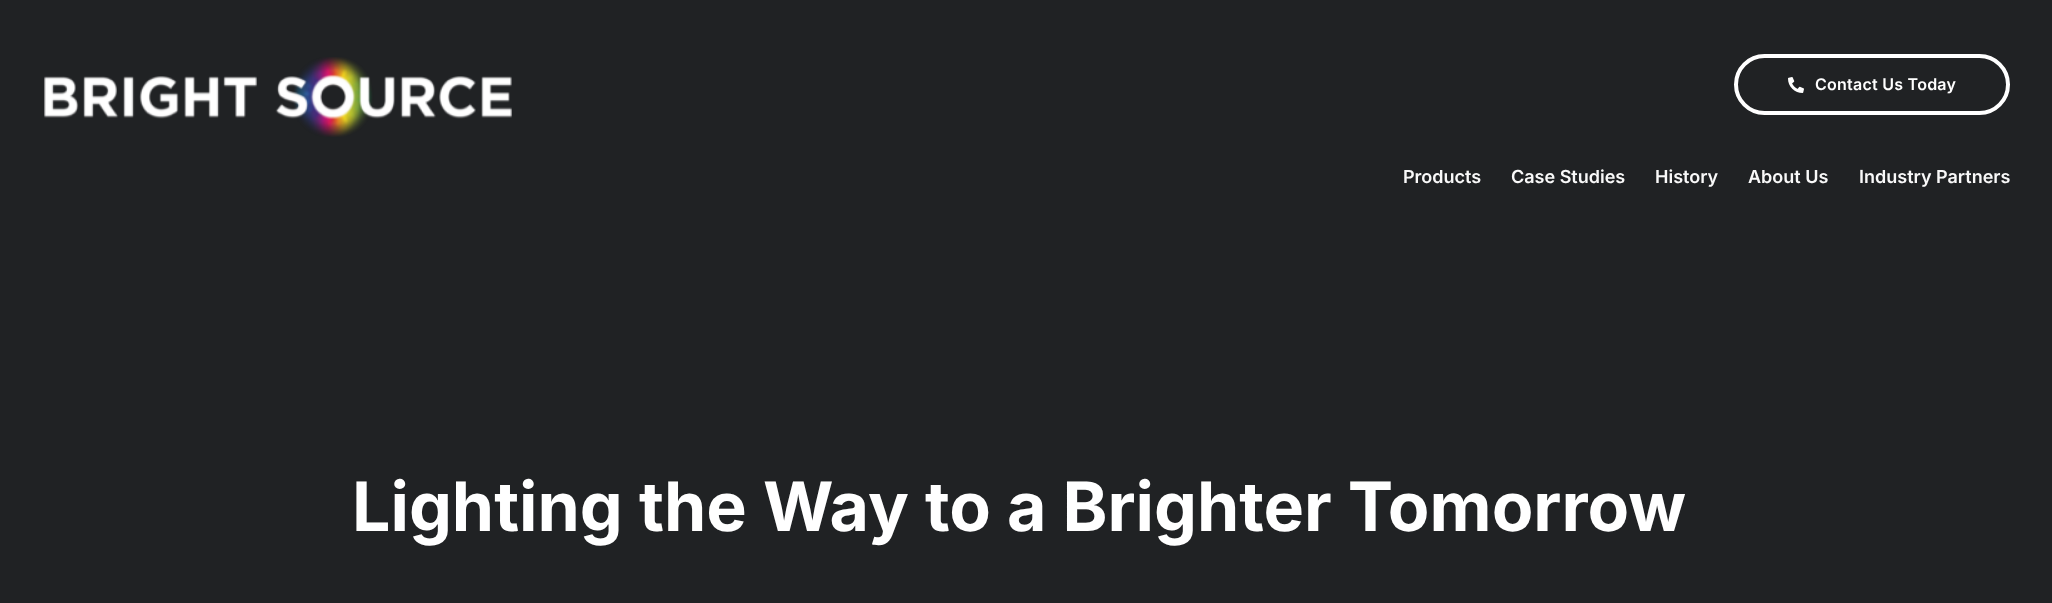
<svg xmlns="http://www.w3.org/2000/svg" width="2052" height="603">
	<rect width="100%" height="100%" fill="#202224" />
	<image x="44" y="57" width="468" height="80" href="assets/img1.png" />
	<rect x="1736" y="56" width="272" height="57" rx="28.5" fill="none" stroke="#FFFFFF" stroke-width="4" />
	<image x="1788" y="77" width="16" height="16" href="assets/img2.png" />
	<text x="1815" y="90" font-family="Inter" font-size="16" font-weight="600" letter-spacing="0.25" fill="#FFFFFF">Contact Us Today</text>
	<g font-family="Inter" font-size="18" font-weight="600" fill="#F9F9F9">
		<text x="1403" y="183">Products</text>
		<text x="1511" y="183">Case Studies</text>
		<text x="1655" y="183">History</text>
		<text x="1748" y="183">About Us</text>
		<text x="1859" y="183">Industry Partners</text>
	</g>
	<text x="352" y="531" font-family="Inter" font-size="68" font-weight="700" fill="#FFFFFF">Lighting the Way to a Brighter Tomorrow</text>
</svg>
